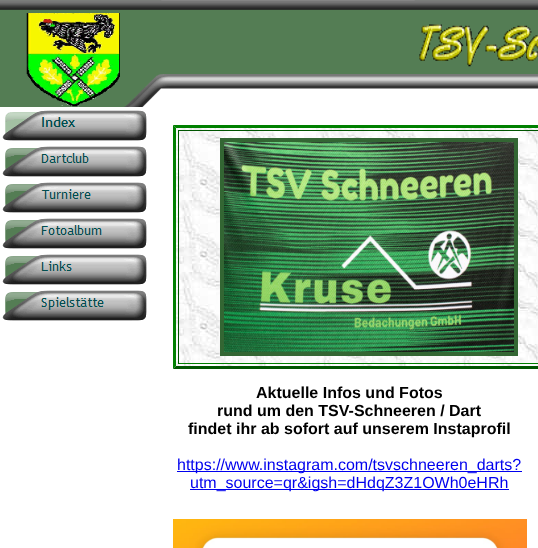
<svg xmlns="http://www.w3.org/2000/svg" width="538" height="548">
	<rect width="100%" height="100%" fill="#FFFFFF" />
	<image x="0" y="0" width="538" height="122" href="assets/img1.png" />
	<image x="26" y="13" width="94" height="94" href="assets/img2.png" />
	<image x="0" y="107" width="147" height="34" href="assets/img3.png" />
	<image x="2" y="146" width="145" height="31" href="assets/img4.png" />
	<image x="2" y="182" width="145" height="31" href="assets/img5.png" />
	<image x="2" y="218" width="145" height="31" href="assets/img6.png" />
	<image x="2" y="254" width="145" height="31" href="assets/img7.png" />
	<image x="2" y="290" width="145" height="31" href="assets/img8.png" />
	<image x="419" y="24" width="119" height="43" href="assets/img9.png" />
	<image x="173" y="125" width="365" height="244" href="assets/img10.png" />
	<path d="M173 125H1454L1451 128H176Z" fill="#008000" />
	<path d="M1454 369H173L176 366H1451Z" fill="#005500" />
	<path d="M173 369V125L176 128V366Z" fill="#008000" />
	<rect x="178" y="130" width="360" height="1" fill="#005500" />
	<rect x="178" y="363" width="360" height="1" fill="#008000" />
	<rect x="178" y="130" width="1" height="234" fill="#005500" />
	<rect x="222" y="140" width="294" height="214" fill="none" stroke="#336633" stroke-width="4" />
	<image x="224" y="142" width="290" height="210" href="assets/img11.png" />
	<g font-family="Liberation Sans" font-size="16" font-weight="700" fill="#000000">
		<text x="256" y="398">Aktuelle Infos und Fotos</text>
		<text x="217" y="416">rund um den TSV-Schneeren / Dart</text>
		<text x="188" y="434">findet ihr ab sofort auf unserem Instaprofil</text>
	</g>
	<rect x="177" y="471" width="345" height="1" fill="#0000EE" />
	<text x="177" y="470" font-family="Liberation Sans" font-size="16" fill="#0000EE">https://www.instagram.com/tsvschneeren_darts?</text>
	<rect x="190" y="489" width="319" height="1" fill="#0000EE" />
	<text x="190" y="488" font-family="Liberation Sans" font-size="16" fill="#0000EE">utm_source=qr&amp;igsh=dHdqZ3Z1OWh0eHRh</text>
	<image x="173" y="519" width="354" height="29" href="assets/img12.png" />
</svg>
